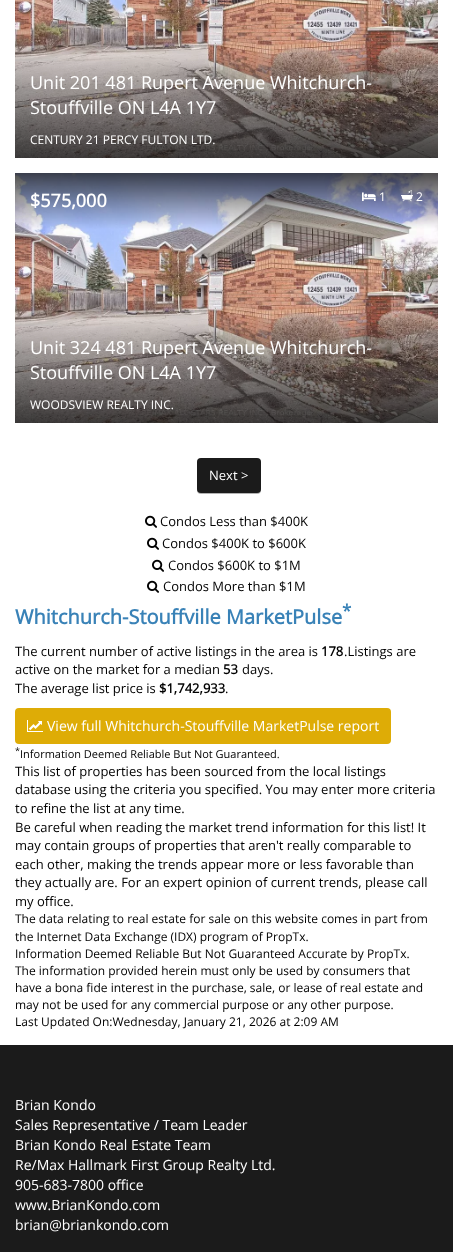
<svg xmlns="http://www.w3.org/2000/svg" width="453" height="1252">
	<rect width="100%" height="100%" fill="#FFFFFF" />
	<image x="15" y="0" width="423" height="158" href="assets/img1.png" />
	<g font-family="Open Sans" font-size="18" fill="#FFFFFF">
		<text x="30" y="89">Unit 201 481 Rupert Avenue Whitchurch-</text>
		<text x="30" y="114">Stouffville ON L4A 1Y7</text>
	</g>
	<text x="30" y="144" font-family="Open Sans" font-size="12" fill="#FFFFFF">CENTURY 21 PERCY FULTON LTD.</text>
	<image x="15" y="173" width="423" height="250" href="assets/img2.png" />
	<text x="30" y="207" font-family="Open Sans" font-size="18" font-weight="700" fill="#FFFFFF">$575,000</text>
	<image x="362" y="192" width="14" height="9" href="assets/img3.png" />
	<text x="379" y="201" font-family="Open Sans" font-size="12" fill="#FFFFFF">1</text>
	<image x="401" y="190" width="12" height="12" href="assets/img4.png" />
	<text x="416" y="201" font-family="Open Sans" font-size="12" fill="#FFFFFF">2</text>
	<g font-family="Open Sans" font-size="18" fill="#FFFFFF">
		<text x="30" y="354">Unit 324 481 Rupert Avenue Whitchurch-</text>
		<text x="30" y="379">Stouffville ON L4A 1Y7</text>
	</g>
	<text x="30" y="409" font-family="Open Sans" font-size="12" fill="#FFFFFF">WOODSVIEW REALTY INC.</text>
	<rect x="197" y="459" width="64" height="35" rx="4" fill="#000000" fill-opacity="0.3" filter="blur(0.5px)" />
	<rect x="197" y="458" width="64" height="35" rx="4" fill="#1B1B1B" />
	<text x="209" y="480" font-family="Open Sans" font-size="13" fill="#FFFFFF">Next &gt;</text>
	<image x="145" y="515" width="12" height="13" href="assets/img5.png" />
	<text x="160" y="526" font-family="Open Sans" font-size="13" fill="#000000">Condos Less than $400K</text>
	<image x="147" y="537" width="12" height="13" href="assets/img5.png" />
	<text x="162" y="548" font-family="Open Sans" font-size="13" fill="#000000">Condos $400K to $600K</text>
	<image x="152" y="559" width="12" height="13" href="assets/img5.png" />
	<text x="168" y="570" font-family="Open Sans" font-size="13" fill="#000000">Condos $600K to $1M</text>
	<image x="147" y="580" width="12" height="13" href="assets/img5.png" />
	<text x="163" y="591" font-family="Open Sans" font-size="13" fill="#000000">Condos More than $1M</text>
	<text x="15" y="624" font-family="Open Sans" font-size="20" font-weight="700" fill="#3982B7">Whitchurch-Stouffville MarketPulse</text>
	<text x="342" y="617" font-family="Open Sans" font-size="17" font-weight="700" fill="#3982B7">*</text>
	<text x="15" y="656" font-family="Open Sans" font-size="13" fill="#000000">The current number of active listings in the area is</text>
	<text x="321" y="656" font-family="Open Sans" font-size="13" font-weight="700" fill="#000000">178</text>
	<g font-family="Open Sans" font-size="13" fill="#000000">
		<text x="344" y="656">.Listings are</text>
		<text x="15" y="674">active on the market for a median</text>
	</g>
	<text x="223" y="674" font-family="Open Sans" font-size="13" font-weight="700" fill="#000000">53</text>
	<g font-family="Open Sans" font-size="13" fill="#000000">
		<text x="242" y="674">days.</text>
		<text x="15" y="693">The average list price is</text>
	</g>
	<text x="159" y="693" font-family="Open Sans" font-size="13" font-weight="700" fill="#000000">$1,742,933</text>
	<text x="225" y="693" font-family="Open Sans" font-size="13" fill="#000000">.</text>
	<rect x="15" y="708" width="376" height="36" rx="4" fill="#DEAC06" />
	<image x="27" y="720" width="16" height="12" href="assets/img6.png" />
	<text x="47" y="731" font-family="Open Sans" font-size="14" fill="#FFFFFF">View full Whitchurch-Stouffville MarketPulse report</text>
	<text x="15" y="754" font-family="Open Sans" font-size="9" fill="#000000">*</text>
	<text x="20" y="758" font-family="Open Sans" font-size="11" fill="#000000">Information Deemed Reliable But Not Guaranteed.</text>
	<g font-family="Open Sans" font-size="13" fill="#000000">
		<text x="15" y="776">This list of properties has been sourced from the local listings</text>
		<text x="15" y="794">database using the criteria you specified. You may enter more criteria</text>
		<text x="15" y="813">to refine the list at any time.</text>
		<text x="15" y="832">Be careful when reading the market trend information for this list! It</text>
		<text x="15" y="850">may contain groups of properties that aren't really comparable to</text>
		<text x="15" y="869">each other, making the trends appear more or less favorable than</text>
		<text x="15" y="887">they actually are. For an expert opinion of current trends, please call</text>
		<text x="15" y="906">my office.</text>
	</g>
	<g font-family="Open Sans" font-size="12" fill="#000000">
		<text x="15" y="923">The data relating to real estate for sale on this website comes in part from</text>
		<text x="15" y="941">the Internet Data Exchange (IDX) program of PropTx.</text>
		<text x="15" y="958">Information Deemed Reliable But Not Guaranteed Accurate by PropTx.</text>
		<text x="15" y="975">The information provided herein must only be used by consumers that</text>
		<text x="15" y="992">have a bona fide interest in the purchase, sale, or lease of real estate and</text>
		<text x="15" y="1009">may not be used for any commercial purpose or any other purpose.</text>
		<text x="15" y="1026">Last Updated On:Wednesday, January 21, 2026 at 2:09 AM</text>
	</g>
	<rect x="0" y="1045" width="453" height="207" fill="#1B1B1B" />
	<g font-family="Open Sans" font-size="14" fill="#FFFFFF">
		<text x="15" y="1110">Brian Kondo</text>
		<text x="15" y="1130">Sales Representative / Team Leader</text>
		<text x="15" y="1150">Brian Kondo Real Estate Team</text>
		<text x="15" y="1170">Re/Max Hallmark First Group Realty Ltd.</text>
		<text x="15" y="1190">905-683-7800 office</text>
		<text x="15" y="1210">www.BrianKondo.com</text>
		<text x="15" y="1230">brian@briankondo.com</text>
	</g>
</svg>
